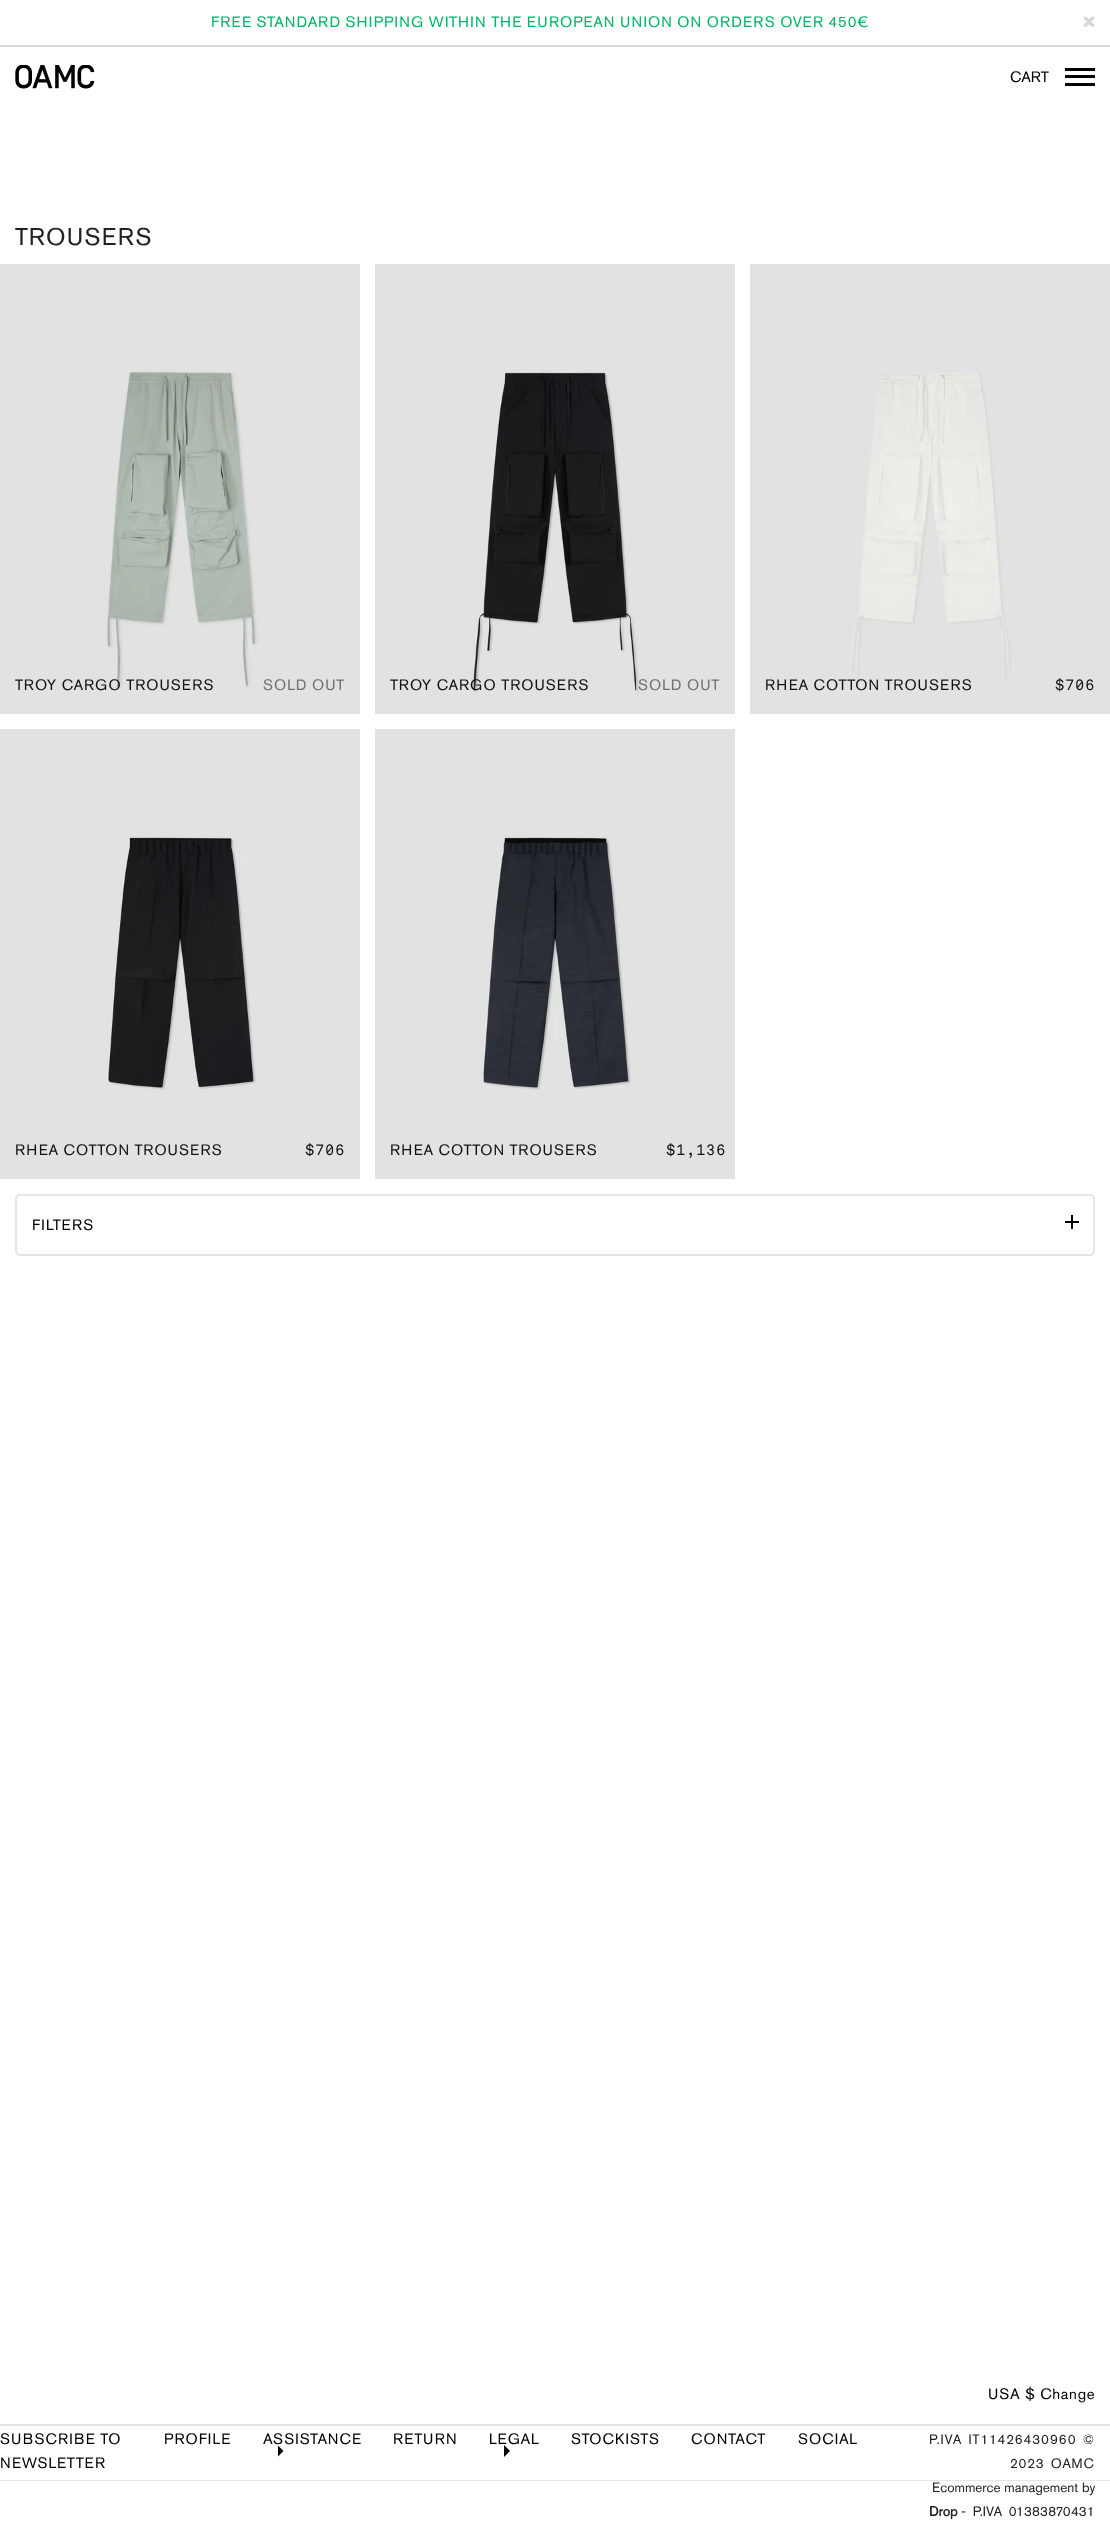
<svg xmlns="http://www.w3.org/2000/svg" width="1110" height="2524">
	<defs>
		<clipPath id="clip1"><rect x="278" y="2445" width="6" height="12" /></clipPath>
	</defs>
	<rect width="100%" height="100%" fill="#FFFFFF" />
	<rect x="0" y="45" width="1110" height="2" fill="#D8D8D8" />
	<text x="211" y="27" font-family="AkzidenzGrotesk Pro" font-size="15" letter-spacing="0.72" fill="#00B465">FREE STANDARD SHIPPING WITHIN THE EUROPEAN UNION ON ORDERS OVER 450€</text>
	<path d="M1084 17C1086 15 1089 19.5 1090 20.5C1091 21.5 1095.5 25 1094 26.5C1092 28.5 1089 24 1088 23C1087 22 1082.5 18.5 1084 17Z" fill="#D8D8D8" />
	<path d="M1094 17C1095.5 18.5 1091 22 1090 23C1089 24 1086 28.5 1084 26.5C1082.5 25 1087 21.5 1088 20.5C1089 19.5 1092 15 1094 17Z" fill="#D8D8D8" />
	<image x="15" y="65" width="80" height="24" href="assets/img1.png" />
	<text x="1010" y="82" font-family="AkzidenzGrotesk Pro" font-size="15" fill="#000000">CART</text>
	<rect x="1065" y="75" width="30" height="3" fill="#000000" />
	<rect x="1065" y="68" width="30" height="3" fill="#000000" />
	<rect x="1065" y="83" width="30" height="3" fill="#000000" />
	<text x="15" y="245" font-family="AkzidenzGrotesk Pro" font-size="24" letter-spacing="0.72" fill="#212121">TROUSERS</text>
	<image x="0" y="264" width="360" height="450" href="assets/img2.png" />
	<text x="15" y="690" font-family="AkzidenzGrotesk Pro" font-size="15" letter-spacing="0.72" fill="#111111">TROY CARGO TROUSERS</text>
	<text x="263" y="690" font-family="AkzidenzGrotesk Pro" font-size="15" letter-spacing="0.72" fill="#717171">SOLD OUT</text>
	<image x="375" y="264" width="360" height="450" href="assets/img3.png" />
	<text x="390" y="690" font-family="AkzidenzGrotesk Pro" font-size="15" letter-spacing="0.72" fill="#111111">TROY CARGO TROUSERS</text>
	<text x="638" y="690" font-family="AkzidenzGrotesk Pro" font-size="15" letter-spacing="0.72" fill="#717171">SOLD OUT</text>
	<image x="750" y="264" width="360" height="450" href="assets/img4.png" />
	<text x="765" y="690" font-family="AkzidenzGrotesk Pro" font-size="15" letter-spacing="0.72" fill="#111111">RHEA COTTON TROUSERS</text>
	<text x="1055" y="690" font-family="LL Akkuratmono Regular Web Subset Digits" font-size="15" letter-spacing="0.72" fill="#111111">$706</text>
	<image x="0" y="729" width="360" height="450" href="assets/img5.png" />
	<text x="15" y="1155" font-family="AkzidenzGrotesk Pro" font-size="15" letter-spacing="0.72" fill="#111111">RHEA COTTON TROUSERS</text>
	<text x="305" y="1155" font-family="LL Akkuratmono Regular Web Subset Digits" font-size="15" letter-spacing="0.72" fill="#111111">$706</text>
	<image x="375" y="729" width="360" height="450" href="assets/img6.png" />
	<text x="390" y="1155" font-family="AkzidenzGrotesk Pro" font-size="15" letter-spacing="0.72" fill="#111111">RHEA COTTON TROUSERS</text>
	<text x="666" y="1155" font-family="LL Akkuratmono Regular Web Subset Digits" font-size="15" letter-spacing="0.72" fill="#111111">$1,136</text>
	<rect x="16" y="1195" width="1078" height="60" rx="4" fill="none" stroke="#E5E5E5" stroke-width="2" />
	<text x="32" y="1230" font-family="AkzidenzGrotesk Pro" font-size="15" letter-spacing="0.72" fill="#000000">FILTERS</text>
	<rect x="1065" y="1221" width="14" height="2" fill="#000000" />
	<rect x="1071" y="1215" width="2" height="14" fill="#000000" />
	<text x="988" y="2399" font-family="AkzidenzGrotesk Pro" font-size="15" letter-spacing="0.72" fill="#000000">USA $ Change</text>
	<rect x="0" y="2424" width="1110" height="2" fill="#E4E4E4" />
	<rect x="0" y="2480" width="1110" height="1" fill="#E5E5E5" />
	<g font-family="AkzidenzGrotesk Pro" font-size="15" letter-spacing="0.72" fill="#000000">
		<text x="0" y="2444">SUBSCRIBE TO</text>
		<text x="0" y="2468">NEWSLETTER</text>
		<text x="164" y="2444">PROFILE</text>
		<text x="263" y="2444">ASSISTANCE</text>
	</g>
	<g clip-path="url(#clip1)">
		<path d="M277.5 2445L283.5 2451L277.5 2457Z" fill="#000000" fill-rule="evenodd" />
	</g>
	<g font-family="AkzidenzGrotesk Pro" font-size="15" letter-spacing="0.72" fill="#000000">
		<text x="393" y="2444">RETURN</text>
		<text x="489" y="2444">LEGAL</text>
	</g>
	<path d="M504 2445L510 2451L504 2457Z" fill="#000000" fill-rule="evenodd" />
	<g font-family="AkzidenzGrotesk Pro" font-size="15" letter-spacing="0.72" fill="#000000">
		<text x="571" y="2444">STOCKISTS</text>
		<text x="691" y="2444">CONTACT</text>
		<text x="798" y="2444">SOCIAL</text>
	</g>
	<g font-family="AkzidenzGrotesk Pro" font-size="13.5" letter-spacing="0.72" fill="#212121">
		<text x="929" y="2444" word-spacing="2">P.IVA IT11426430960 ©</text>
		<text x="1010" y="2468" word-spacing="2">2023 OAMC</text>
	</g>
	<text x="932" y="2492" font-family="AkzidenzGrotesk Pro" font-size="13.5" fill="#212121">Ecommerce management by</text>
	<text x="929" y="2516" font-family="AkzidenzGrotesk Pro" font-size="13.5" font-weight="700" fill="#212121">Drop</text>
	<text x="961" y="2516" word-spacing="3" font-family="AkzidenzGrotesk Pro" font-size="13.5" fill="#212121">- P.IVA 01383870431</text>
</svg>
